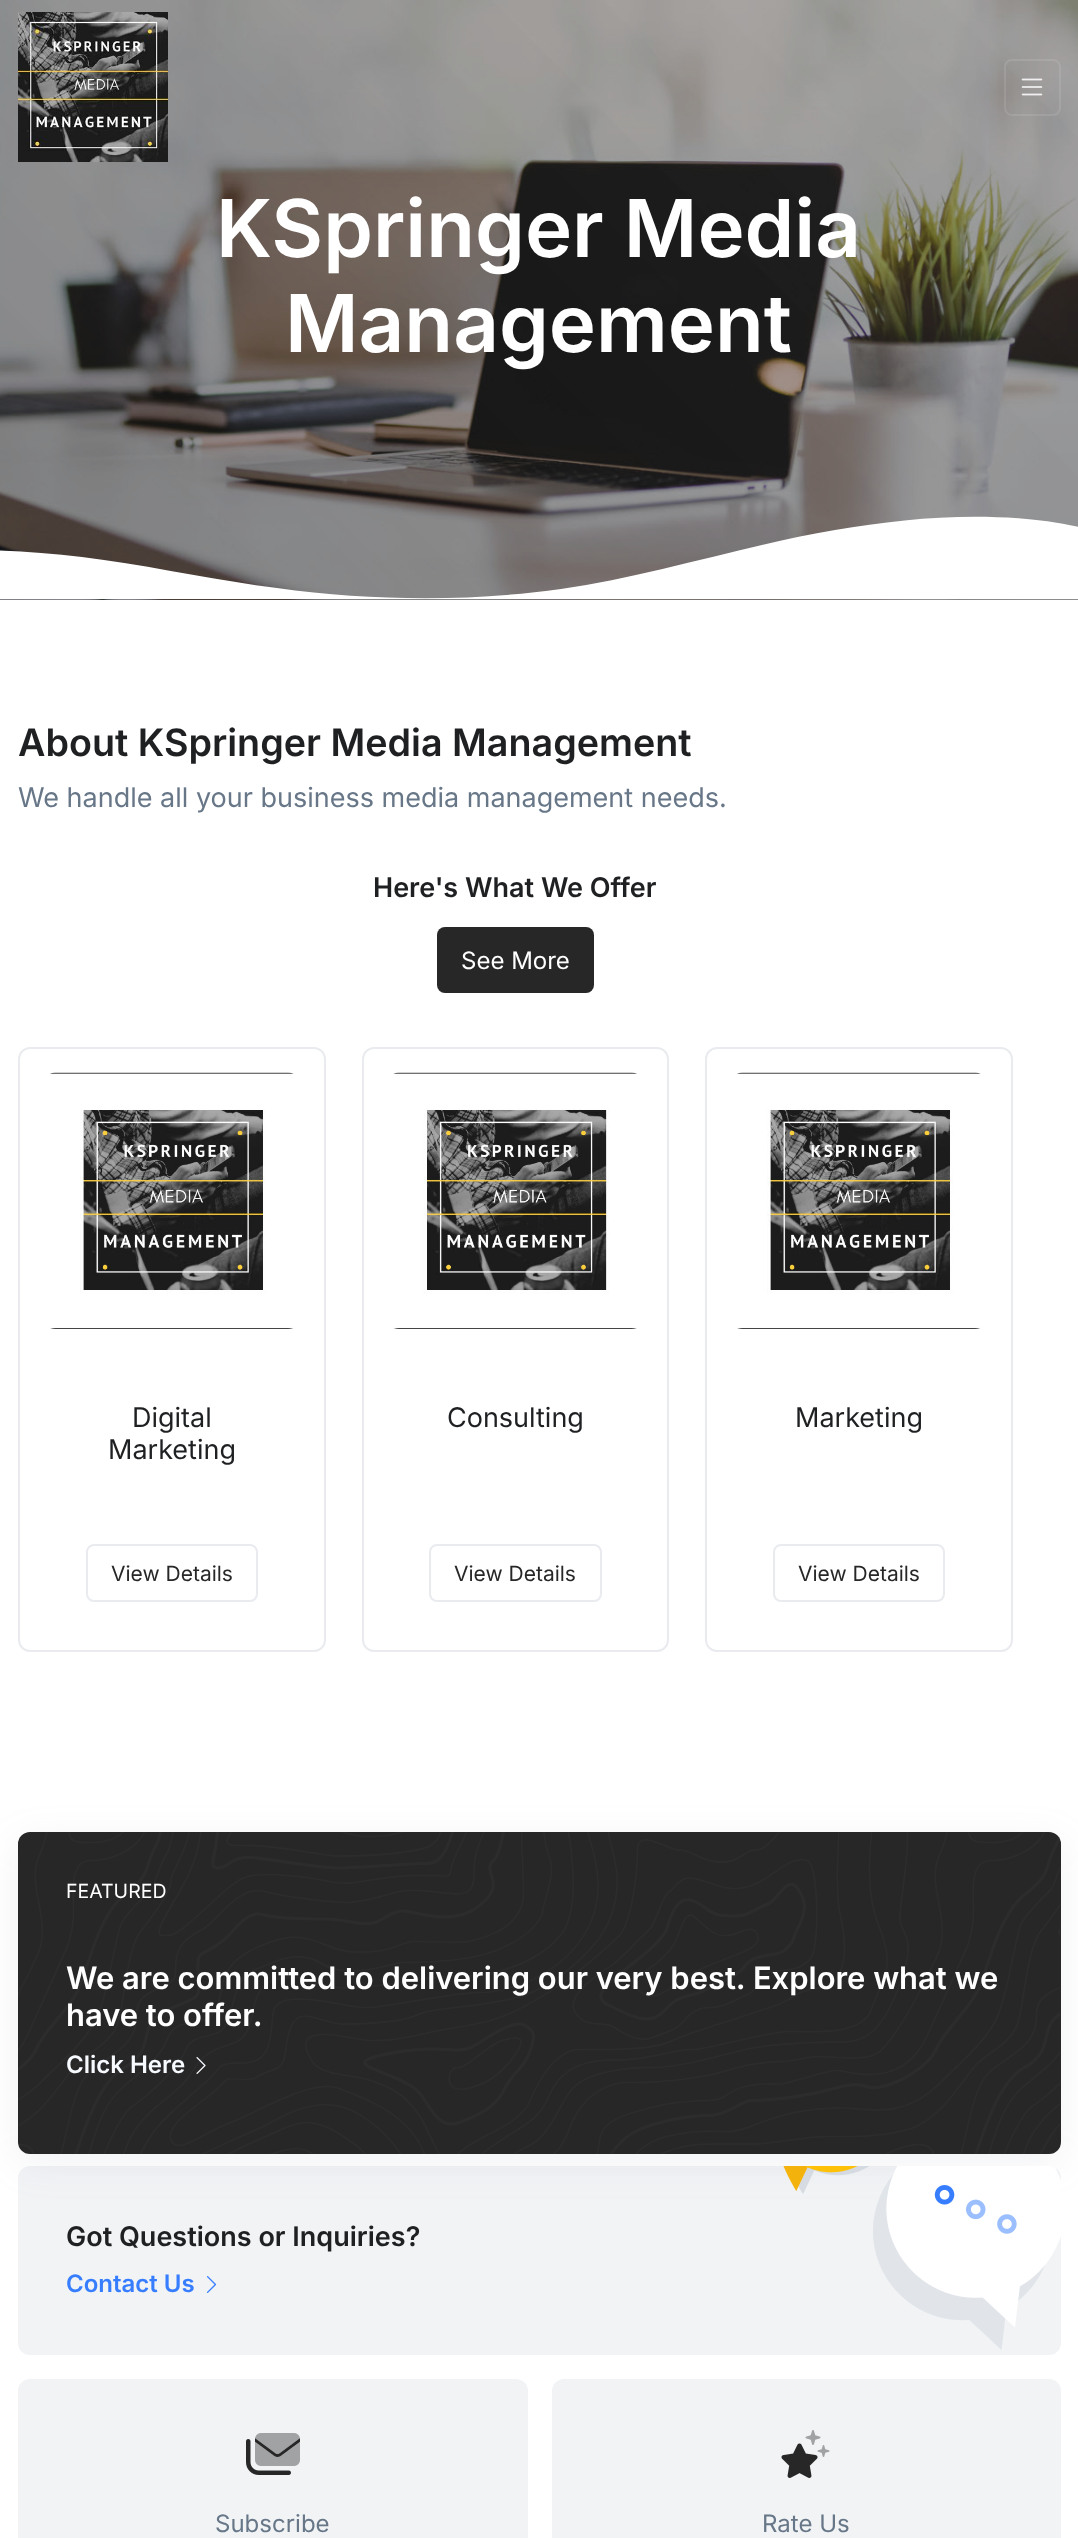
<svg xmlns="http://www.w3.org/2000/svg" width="1078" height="2538">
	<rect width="100%" height="100%" fill="#FFFFFF" />
	<image x="0" y="0" width="1078" height="600" href="assets/img3.png" />
	<image x="18" y="12" width="150" height="150" href="assets/img1.png" />
	<rect x="1005" y="60" width="55" height="55" rx="7" fill="none" stroke="#FFFFFF" stroke-opacity="0.1" stroke-width="2" />
	<image x="1021" y="78" width="22" height="18" href="assets/img2.png" />
	<g font-family="Inter" font-size="79.75" font-weight="600" fill="#FFFFFF">
		<text x="216" y="257">KSpringer Media</text>
		<text x="285" y="352">Management</text>
	</g>
	<path d="M82 557C148 565 212 580 277 588C371 601 468 602 561 589C652 576 746 545 835 530C915 516 1002 510 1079 527V599H-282V579C-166 550-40 542 82 557Z" fill="#FFFFFF" />
	<text x="18" y="756" font-family="Inter" font-size="37.7" font-weight="600" fill="#1E2022">About KSpringer Media Management</text>
	<text x="18" y="807" font-family="Inter" font-size="27" fill="#677788">We handle all your business media management needs.</text>
	<text x="373" y="897" font-family="Inter" font-size="27" font-weight="600" fill="#1E2022">Here's What We Offer</text>
	<rect x="437" y="927" width="157" height="66" rx="8" fill="#272727" />
	<text x="461" y="969" font-family="Inter" font-size="24" fill="#FFFFFF">See More</text>
	<rect x="19" y="1048" width="306" height="603" rx="11" fill="none" stroke="#E9EBEF" stroke-width="2" />
	<image x="50" y="1072" width="244" height="257" href="assets/img4.png" />
	<g font-family="Inter" font-size="27" fill="#1E2022">
		<text x="132" y="1427">Digital</text>
		<text x="108" y="1459">Marketing</text>
	</g>
	<rect x="87" y="1545" width="170" height="56" rx="7" fill="none" stroke="#E9EBEF" stroke-width="2" />
	<text x="111" y="1581" font-family="Inter" font-size="21" fill="#272727">View Details</text>
	<rect x="363" y="1048" width="305" height="603" rx="11" fill="none" stroke="#E9EBEF" stroke-width="2" />
	<image x="393" y="1072" width="244" height="257" href="assets/img5.png" />
	<text x="447" y="1427" font-family="Inter" font-size="27" fill="#1E2022">Consulting</text>
	<rect x="430" y="1545" width="171" height="56" rx="7" fill="none" stroke="#E9EBEF" stroke-width="2" />
	<text x="454" y="1581" font-family="Inter" font-size="21" fill="#272727">View Details</text>
	<rect x="706" y="1048" width="306" height="603" rx="11" fill="none" stroke="#E9EBEF" stroke-width="2" />
	<image x="737" y="1072" width="244" height="257" href="assets/img4.png" />
	<text x="795" y="1427" font-family="Inter" font-size="27" fill="#1E2022">Marketing</text>
	<rect x="774" y="1545" width="170" height="56" rx="7" fill="none" stroke="#E9EBEF" stroke-width="2" />
	<text x="798" y="1581" font-family="Inter" font-size="21" fill="#272727">View Details</text>
	<rect x="18" y="1841" width="1043" height="322" rx="12" fill="#8C98A4" fill-opacity="0.12" filter="blur(18px)" />
	<rect x="18" y="1832" width="1043" height="322" rx="12" fill="#272727" />
	<image x="18" y="1832" width="1042" height="322" href="assets/img6.png" />
	<text x="66" y="1898" font-family="Inter" font-size="19.5" fill="#FFFFFF">FEATURED</text>
	<g font-family="Inter" font-size="30.95" font-weight="600" fill="#FFFFFF">
		<text x="66" y="1989">We are committed to delivering our very best. Explore what we</text>
		<text x="66" y="2026">have to offer.</text>
	</g>
	<text x="66" y="2073" font-family="Inter" font-size="24" font-weight="600" fill="#F7FAFF">Click Here</text>
	<image x="196" y="2057" width="10" height="17" href="assets/img7.png" />
	<rect x="18" y="2166" width="1043" height="189" rx="12" fill="#71869D" fill-opacity="0.1" />
	<text x="66" y="2246" font-family="Inter" font-size="27" font-weight="600" fill="#1E2022">Got Questions or Inquiries?</text>
	<text x="66" y="2292" font-family="Inter" font-size="24" font-weight="600" fill="#377DFF">Contact Us</text>
	<image x="206" y="2276" width="11" height="17" href="assets/img8.png" />
	<image x="783" y="2166" width="278" height="184" href="assets/img9.png" />
	<rect x="18" y="2379" width="510" height="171" rx="12" fill="#F1F3F5" />
	<image x="246" y="2438" width="54" height="37" href="assets/img11.png" />
	<image x="255" y="2433" width="45" height="33" href="assets/img10.png" />
	<text x="215" y="2532" font-family="Inter" font-size="24" fill="#677788">Subscribe</text>
	<rect x="552" y="2379" width="509" height="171" rx="12" fill="#F1F3F5" />
	<image x="781" y="2443" width="37" height="35" href="assets/img13.png" />
	<image x="805" y="2430" width="25" height="27" href="assets/img12.png" />
	<text x="762" y="2532" font-family="Inter" font-size="24" fill="#677788">Rate Us</text>
</svg>
